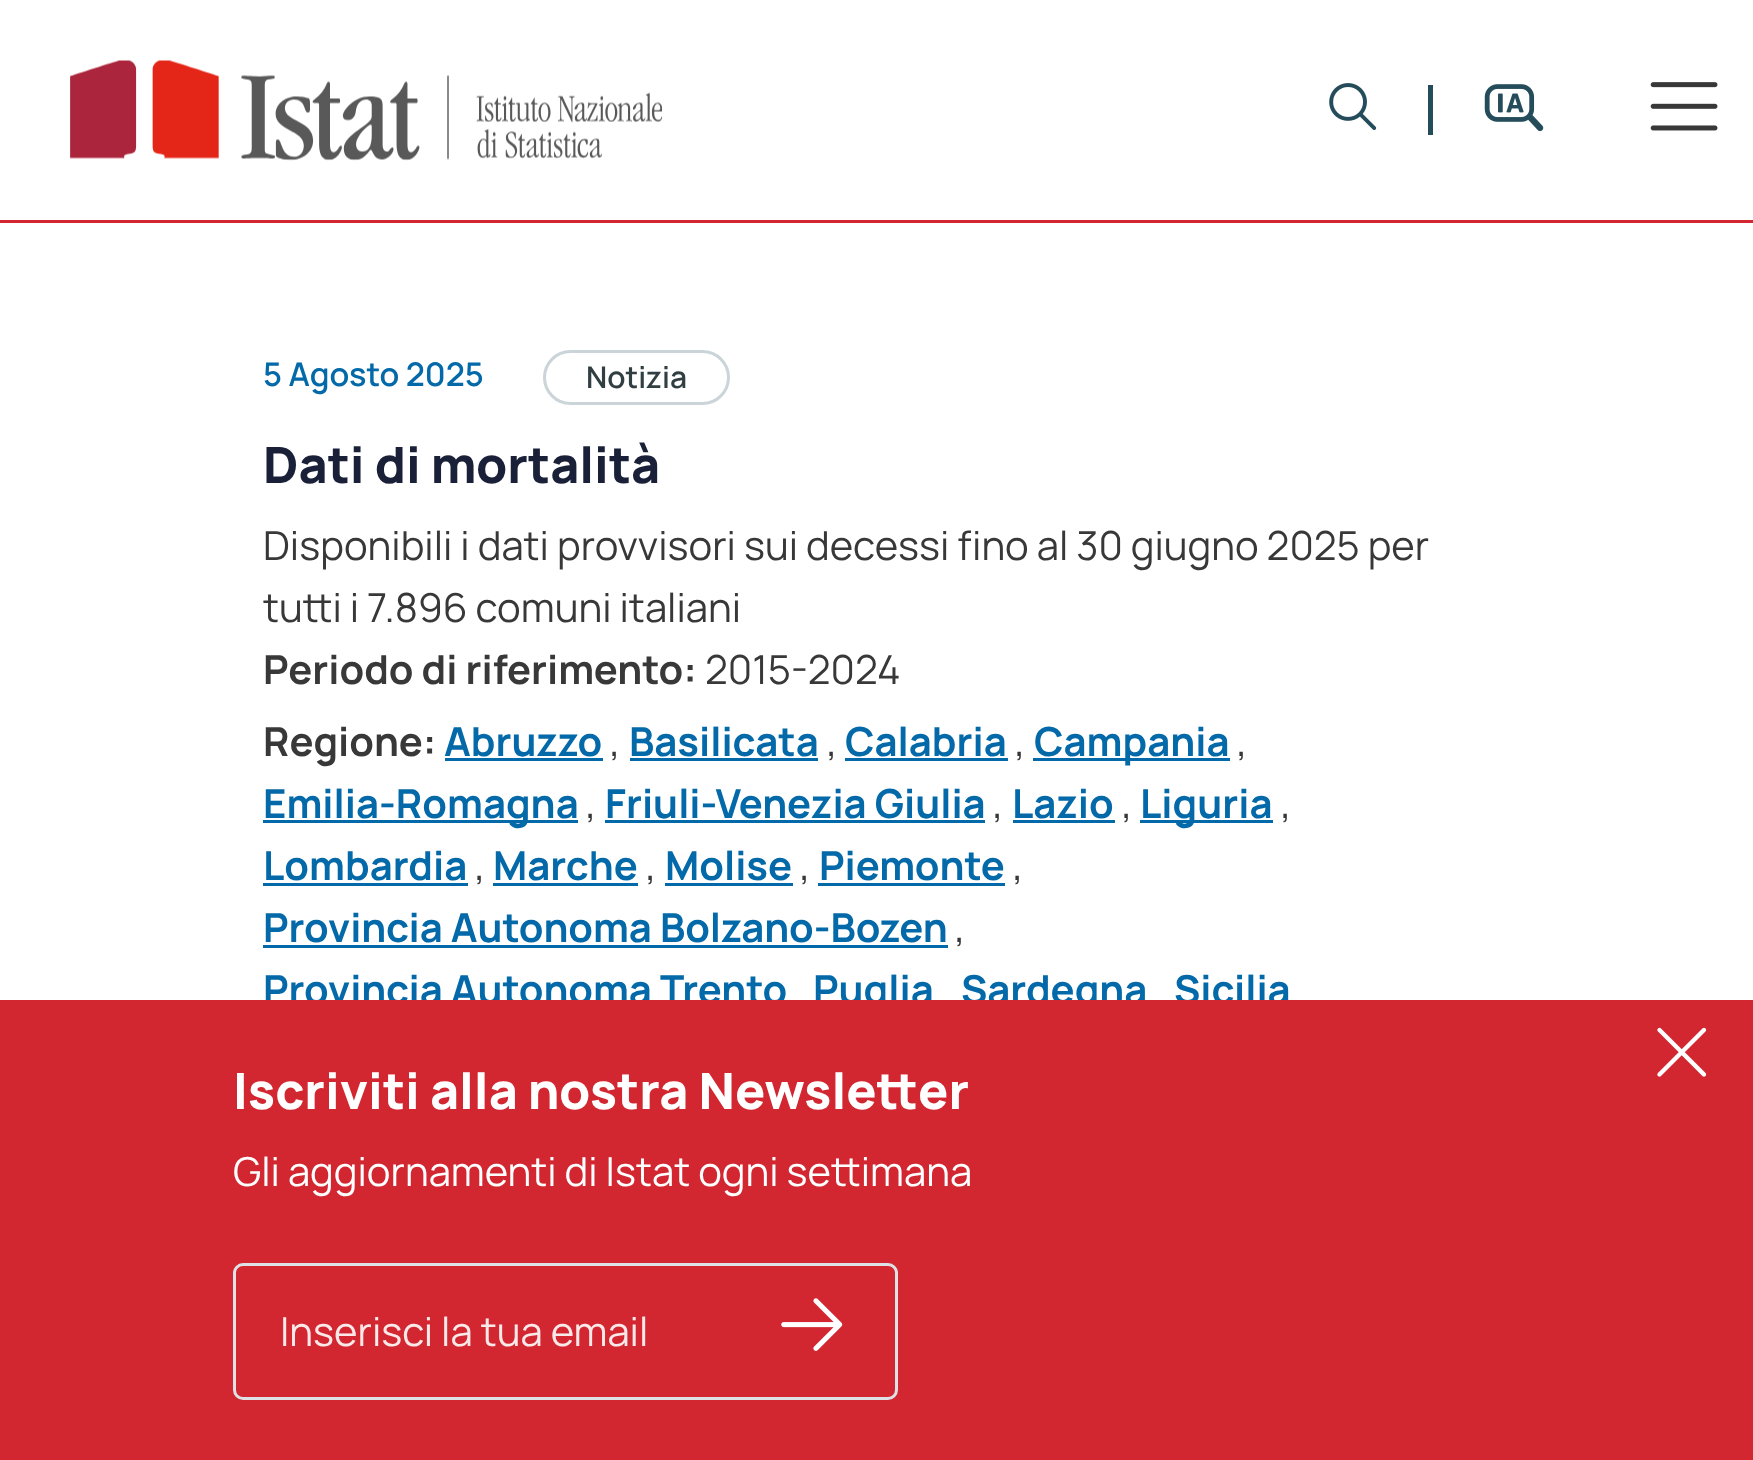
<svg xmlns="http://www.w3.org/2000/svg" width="1753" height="1460">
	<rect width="100%" height="100%" fill="#FFFFFF" />
	<rect x="0" y="220" width="1753" height="3" fill="#D22630" />
	<image x="70" y="60" width="593" height="101" href="assets/img1.png" />
	<image x="1329" y="83" width="48" height="47" href="assets/img2.png" />
	<rect x="1428" y="85" width="5" height="50" fill="#244C5A" />
	<image x="1484" y="84" width="60" height="48" href="assets/img3.png" />
	<image x="1650" y="82" width="68" height="49" href="assets/img4.png" />
	<text x="263" y="386" font-family="Manrope" font-size="32.5" font-weight="600" fill="#0369A9">5 Agosto 2025</text>
	<rect x="544.5" y="351.5" width="184" height="52" rx="26" fill="none" stroke="#CBD4D8" stroke-width="3" />
	<text x="586" y="388" font-family="Manrope" font-size="30" font-weight="600" fill="#313E42">Notizia</text>
	<text x="263" y="483" font-family="Manrope" font-size="50" font-weight="800" fill="#192038">Dati di mortalità</text>
	<g font-family="Manrope" font-size="40" fill="#383838">
		<text x="263" y="560">Disponibili i dati provvisori sui decessi fino al 30 giugno 2025 per</text>
		<text x="263" y="622">tutti i 7.896 comuni italiani</text>
	</g>
	<text x="263" y="684" font-family="Manrope" font-size="40" font-weight="700" fill="#383838">Periodo di riferimento:</text>
	<text x="705" y="684" font-family="Manrope" font-size="40" fill="#383838">2015-2024</text>
	<text x="263" y="756" font-family="Manrope" font-size="40" font-weight="700" fill="#383838">Regione:</text>
	<text x="444" y="756" font-family="Manrope" font-size="40" font-weight="700" fill="#0369A9">Abruzzo</text>
	<rect x="445" y="758" width="158" height="3" fill="#0369A9" />
	<text x="610" y="756" font-family="Manrope" font-size="40" fill="#383838">,</text>
	<text x="629" y="756" font-family="Manrope" font-size="40" font-weight="700" fill="#0369A9">Basilicata</text>
	<rect x="630" y="758" width="188" height="3" fill="#0369A9" />
	<text x="827" y="756" font-family="Manrope" font-size="40" fill="#383838">,</text>
	<text x="845" y="756" font-family="Manrope" font-size="40" font-weight="700" fill="#0369A9">Calabria</text>
	<rect x="845" y="758" width="163" height="3" fill="#0369A9" />
	<text x="1015" y="756" font-family="Manrope" font-size="40" fill="#383838">,</text>
	<rect x="1033" y="758" width="197" height="3" fill="#0369A9" />
	<text x="1034" y="756" font-family="Manrope" font-size="40" font-weight="700" fill="#0369A9">Campania</text>
	<text x="1237" y="756" font-family="Manrope" font-size="40" fill="#383838">,</text>
	<rect x="263" y="820" width="315" height="3" fill="#0369A9" />
	<text x="263" y="818" font-family="Manrope" font-size="40" font-weight="700" fill="#0369A9">Emilia-Romagna</text>
	<text x="586" y="818" font-family="Manrope" font-size="40" fill="#383838">,</text>
	<text x="605" y="818" font-family="Manrope" font-size="40" font-weight="700" fill="#0369A9">Friuli-Venezia Giulia</text>
	<rect x="605" y="820" width="380" height="3" fill="#0369A9" />
	<text x="993" y="818" font-family="Manrope" font-size="40" fill="#383838">,</text>
	<text x="1012" y="818" font-family="Manrope" font-size="40" font-weight="700" fill="#0369A9">Lazio</text>
	<rect x="1013" y="820" width="102" height="3" fill="#0369A9" />
	<text x="1122" y="818" font-family="Manrope" font-size="40" fill="#383838">,</text>
	<rect x="1140" y="820" width="133" height="3" fill="#0369A9" />
	<text x="1140" y="818" font-family="Manrope" font-size="40" font-weight="700" fill="#0369A9">Liguria</text>
	<text x="1281" y="818" font-family="Manrope" font-size="40" fill="#383838">,</text>
	<text x="263" y="880" font-family="Manrope" font-size="40" font-weight="700" fill="#0369A9">Lombardia</text>
	<rect x="263" y="883" width="205" height="3" fill="#0369A9" />
	<text x="475" y="880" font-family="Manrope" font-size="40" fill="#383838">,</text>
	<text x="493" y="880" font-family="Manrope" font-size="40" font-weight="700" fill="#0369A9">Marche</text>
	<rect x="493" y="883" width="145" height="3" fill="#0369A9" />
	<text x="646" y="880" font-family="Manrope" font-size="40" fill="#383838">,</text>
	<text x="665" y="880" font-family="Manrope" font-size="40" font-weight="700" fill="#0369A9">Molise</text>
	<rect x="665" y="883" width="128" height="3" fill="#0369A9" />
	<text x="800" y="880" font-family="Manrope" font-size="40" fill="#383838">,</text>
	<text x="819" y="880" font-family="Manrope" font-size="40" font-weight="700" fill="#0369A9">Piemonte</text>
	<rect x="818" y="883" width="187" height="3" fill="#0369A9" />
	<text x="1013" y="880" font-family="Manrope" font-size="40" fill="#383838">,</text>
	<text x="263" y="942" font-family="Manrope" font-size="40" font-weight="700" fill="#0369A9">Provincia Autonoma Bolzano-Bozen</text>
	<rect x="263" y="945" width="685" height="3" fill="#0369A9" />
	<text x="955" y="942" font-family="Manrope" font-size="40" fill="#383838">,</text>
	<g font-family="Manrope" font-size="40" font-weight="700" fill="#0369A9">
		<text x="263" y="1004">Provincia Autonoma Trento</text>
		<text x="813" y="1004">Puglia</text>
		<text x="961" y="1004">Sardegna</text>
		<text x="1174" y="1004">Sicilia</text>
	</g>
	<rect x="0" y="1000" width="1753" height="460" fill="#D22630" />
	<image x="1657" y="1027" width="50" height="50" href="assets/img5.png" />
	<text x="233" y="1109" font-family="Manrope" font-size="50" font-weight="800" fill="#FFFFFF">Iscriviti alla nostra Newsletter</text>
	<text x="233" y="1186" font-family="Manrope" font-size="40" fill="#FFFFFF">Gli aggiornamenti di Istat ogni settimana</text>
	<rect x="234.5" y="1264.5" width="662" height="134" rx="8.5" fill="none" stroke="#DEE2E6" stroke-width="3" />
	<text x="280" y="1346" font-family="Manrope" font-size="40" fill="#FBE9EA">Inserisci la tua email</text>
	<image x="781" y="1298" width="62" height="53" href="assets/img6.png" />
</svg>
